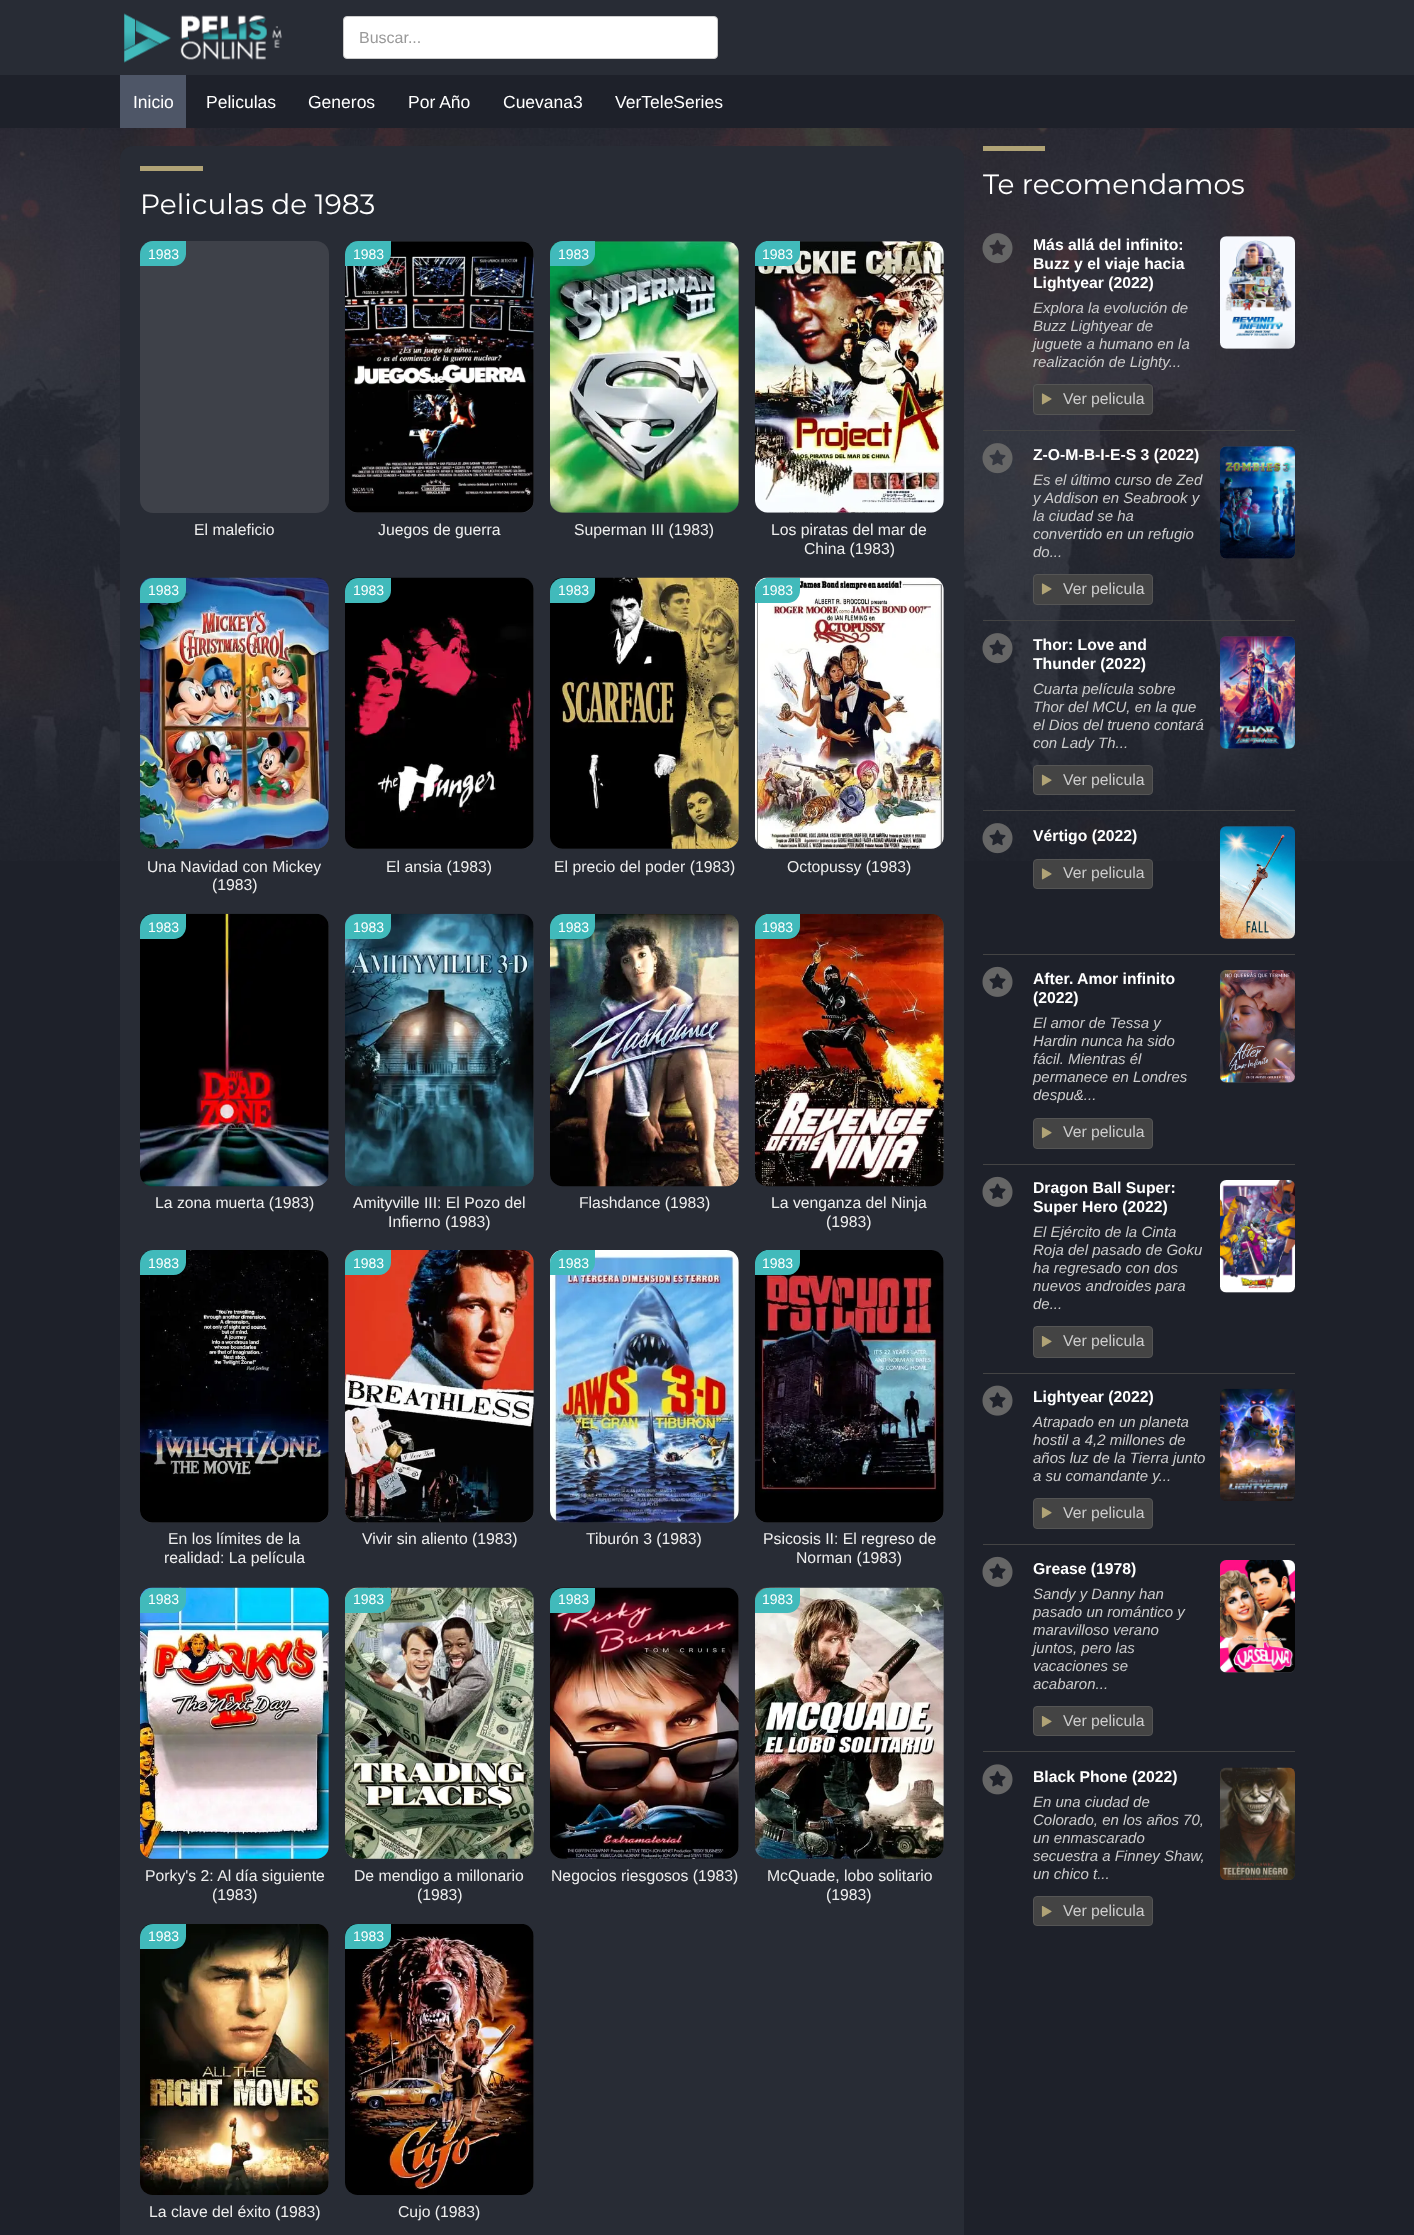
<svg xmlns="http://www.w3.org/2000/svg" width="1414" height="2235">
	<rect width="100%" height="100%" fill="#1E212A" />
	<image x="0" y="128" width="1414" height="733" href="assets/img1.png" />
	<rect x="0" y="0" width="1414" height="75" fill="#282C35" />
	<image x="124" y="13" width="158" height="50" href="assets/img2.png" />
	<rect x="343.5" y="16.5" width="374" height="42" rx="3.5" fill="#FFFFFF" stroke="#CCCCCC" />
	<text x="359" y="43" font-family="Liberation Sans" font-size="16" fill="#999999">Buscar...</text>
	<rect x="120" y="75" width="66" height="53" fill="#4E5667" />
	<g font-family="Liberation Sans" font-size="17.5" fill="#FFFFFF">
		<text x="133" y="108">Inicio</text>
		<text x="206" y="108">Peliculas</text>
		<text x="308" y="108">Generos</text>
		<text x="408" y="108">Por Año</text>
		<text x="503" y="108">Cuevana3</text>
		<text x="615" y="108">VerTeleSeries</text>
	</g>
	<rect x="120" y="146" width="844" height="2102" rx="13" fill="#282C35" />
	<rect x="140" y="166" width="63" height="5" fill="#B0A376" />
	<text x="140" y="214" font-family="Montserrat" font-size="28" fill="#FFFFFF">Peliculas de 1983</text>
	<rect x="140" y="241" width="189" height="272" rx="13" fill="#3E4149" />
	<path d="M153 241H186V253.5C186 260.5 180.5 266 173.5 266H140V254C140 247 146 241 153 241Z" fill="#41BABB" />
	<text x="148" y="259" font-family="Liberation Sans" font-size="14" fill="#FFFFFF">1983</text>
	<text x="194" y="535" font-family="Liberation Sans" font-size="15.75" fill="#EEEEEE">El maleficio</text>
	<rect x="345" y="241" width="189" height="272" rx="13" fill="#3E4149" />
	<image x="345" y="241" width="189" height="272" href="assets/img3.png" />
	<path d="M358 241H391V253.5C391 260.5 385.5 266 378.5 266H345V254C345 247 351 241 358 241Z" fill="#41BABB" />
	<text x="353" y="259" font-family="Liberation Sans" font-size="14" fill="#FFFFFF">1983</text>
	<text x="378" y="535" font-family="Liberation Sans" font-size="15.75" fill="#EEEEEE">Juegos de guerra</text>
	<rect x="550" y="241" width="189" height="272" rx="13" fill="#3E4149" />
	<image x="550" y="241" width="189" height="272" href="assets/img4.png" />
	<path d="M563 241H595V253.5C595 260.5 589.5 266 582.5 266H550V254C550 247 556 241 563 241Z" fill="#41BABB" />
	<text x="558" y="259" font-family="Liberation Sans" font-size="14" fill="#FFFFFF">1983</text>
	<text x="574" y="535" font-family="Liberation Sans" font-size="15.75" fill="#EEEEEE">Superman III (1983)</text>
	<rect x="755" y="241" width="189" height="272" rx="13" fill="#3E4149" />
	<image x="755" y="241" width="189" height="272" href="assets/img5.png" />
	<path d="M768 241H800V253.5C800 260.5 794.5 266 787.5 266H755V254C755 247 761 241 768 241Z" fill="#41BABB" />
	<text x="762" y="259" font-family="Liberation Sans" font-size="14" fill="#FFFFFF">1983</text>
	<g font-family="Liberation Sans" font-size="15.75" fill="#EEEEEE">
		<text x="771" y="535">Los piratas del mar de</text>
		<text x="804" y="554">China (1983)</text>
	</g>
	<rect x="140" y="578" width="189" height="271" rx="13" fill="#3E4149" />
	<image x="140" y="577" width="189" height="272" href="assets/img6.png" />
	<path d="M153 578H186V590.5C186 597.5 180.5 603 173.5 603H140V591C140 584 146 578 153 578Z" fill="#41BABB" />
	<text x="148" y="595" font-family="Liberation Sans" font-size="14" fill="#FFFFFF">1983</text>
	<g font-family="Liberation Sans" font-size="15.75" fill="#EEEEEE">
		<text x="147" y="872">Una Navidad con Mickey</text>
		<text x="212" y="890">(1983)</text>
	</g>
	<rect x="345" y="578" width="189" height="271" rx="13" fill="#3E4149" />
	<image x="345" y="577" width="189" height="272" href="assets/img7.png" />
	<path d="M358 578H391V590.5C391 597.5 385.5 603 378.5 603H345V591C345 584 351 578 358 578Z" fill="#41BABB" />
	<text x="353" y="595" font-family="Liberation Sans" font-size="14" fill="#FFFFFF">1983</text>
	<text x="386" y="872" font-family="Liberation Sans" font-size="15.75" fill="#EEEEEE">El ansia (1983)</text>
	<rect x="550" y="578" width="189" height="271" rx="13" fill="#3E4149" />
	<image x="550" y="577" width="189" height="272" href="assets/img8.png" />
	<path d="M563 578H595V590.5C595 597.5 589.5 603 582.5 603H550V591C550 584 556 578 563 578Z" fill="#41BABB" />
	<text x="558" y="595" font-family="Liberation Sans" font-size="14" fill="#FFFFFF">1983</text>
	<text x="554" y="872" font-family="Liberation Sans" font-size="15.75" fill="#EEEEEE">El precio del poder (1983)</text>
	<rect x="755" y="578" width="189" height="271" rx="13" fill="#3E4149" />
	<image x="755" y="577" width="189" height="272" href="assets/img9.png" />
	<path d="M768 578H800V590.5C800 597.5 794.5 603 787.5 603H755V591C755 584 761 578 768 578Z" fill="#41BABB" />
	<text x="762" y="595" font-family="Liberation Sans" font-size="14" fill="#FFFFFF">1983</text>
	<text x="787" y="872" font-family="Liberation Sans" font-size="15.75" fill="#EEEEEE">Octopussy (1983)</text>
	<rect x="140" y="914" width="189" height="272" rx="13" fill="#3E4149" />
	<image x="140" y="913" width="189" height="274" href="assets/img10.png" />
	<path d="M153 914H186V926.5C186 933.5 180.5 939 173.5 939H140V927C140 920 146 914 153 914Z" fill="#41BABB" />
	<text x="148" y="932" font-family="Liberation Sans" font-size="14" fill="#FFFFFF">1983</text>
	<text x="155" y="1208" font-family="Liberation Sans" font-size="15.75" fill="#EEEEEE">La zona muerta (1983)</text>
	<rect x="345" y="914" width="189" height="272" rx="13" fill="#3E4149" />
	<image x="345" y="913" width="189" height="274" href="assets/img11.png" />
	<path d="M358 914H391V926.5C391 933.5 385.5 939 378.5 939H345V927C345 920 351 914 358 914Z" fill="#41BABB" />
	<text x="353" y="932" font-family="Liberation Sans" font-size="14" fill="#FFFFFF">1983</text>
	<g font-family="Liberation Sans" font-size="15.75" fill="#EEEEEE">
		<text x="353" y="1208">Amityville III: El Pozo del</text>
		<text x="388" y="1227">Infierno (1983)</text>
	</g>
	<rect x="550" y="914" width="189" height="272" rx="13" fill="#3E4149" />
	<image x="550" y="914" width="189" height="273" href="assets/img12.png" />
	<path d="M563 914H595V926.5C595 933.5 589.5 939 582.5 939H550V927C550 920 556 914 563 914Z" fill="#41BABB" />
	<text x="558" y="932" font-family="Liberation Sans" font-size="14" fill="#FFFFFF">1983</text>
	<text x="579" y="1208" font-family="Liberation Sans" font-size="15.75" fill="#EEEEEE">Flashdance (1983)</text>
	<rect x="755" y="914" width="189" height="272" rx="13" fill="#3E4149" />
	<image x="755" y="914" width="189" height="273" href="assets/img13.png" />
	<path d="M768 914H800V926.5C800 933.5 794.5 939 787.5 939H755V927C755 920 761 914 768 914Z" fill="#41BABB" />
	<text x="762" y="932" font-family="Liberation Sans" font-size="14" fill="#FFFFFF">1983</text>
	<g font-family="Liberation Sans" font-size="15.75" fill="#EEEEEE">
		<text x="771" y="1208">La venganza del Ninja</text>
		<text x="826" y="1227">(1983)</text>
	</g>
	<rect x="140" y="1250" width="189" height="273" rx="13" fill="#3E4149" />
	<image x="140" y="1250" width="189" height="273" href="assets/img14.png" />
	<path d="M153 1250H186V1262.5C186 1269.5 180.5 1275 173.5 1275H140V1263C140 1256 146 1250 153 1250Z" fill="#41BABB" />
	<text x="148" y="1268" font-family="Liberation Sans" font-size="14" fill="#FFFFFF">1983</text>
	<g font-family="Liberation Sans" font-size="15.75" fill="#EEEEEE">
		<text x="168" y="1544">En los límites de la</text>
		<text x="164" y="1563">realidad: La película</text>
	</g>
	<rect x="345" y="1250" width="189" height="273" rx="13" fill="#3E4149" />
	<image x="345" y="1250" width="189" height="273" href="assets/img15.png" />
	<path d="M358 1250H391V1262.5C391 1269.5 385.5 1275 378.5 1275H345V1263C345 1256 351 1250 358 1250Z" fill="#41BABB" />
	<text x="353" y="1268" font-family="Liberation Sans" font-size="14" fill="#FFFFFF">1983</text>
	<text x="362" y="1544" font-family="Liberation Sans" font-size="15.75" fill="#EEEEEE">Vivir sin aliento (1983)</text>
	<rect x="550" y="1250" width="189" height="273" rx="13" fill="#3E4149" />
	<image x="550" y="1250" width="189" height="273" href="assets/img16.png" />
	<path d="M563 1250H595V1262.5C595 1269.5 589.5 1275 582.5 1275H550V1263C550 1256 556 1250 563 1250Z" fill="#41BABB" />
	<text x="558" y="1268" font-family="Liberation Sans" font-size="14" fill="#FFFFFF">1983</text>
	<text x="586" y="1544" font-family="Liberation Sans" font-size="15.75" fill="#EEEEEE">Tiburón 3 (1983)</text>
	<rect x="755" y="1250" width="189" height="273" rx="13" fill="#3E4149" />
	<image x="755" y="1250" width="189" height="273" href="assets/img17.png" />
	<path d="M768 1250H800V1262.5C800 1269.5 794.5 1275 787.5 1275H755V1263C755 1256 761 1250 768 1250Z" fill="#41BABB" />
	<text x="762" y="1268" font-family="Liberation Sans" font-size="14" fill="#FFFFFF">1983</text>
	<g font-family="Liberation Sans" font-size="15.75" fill="#EEEEEE">
		<text x="763" y="1544">Psicosis II: El regreso de</text>
		<text x="796" y="1563">Norman (1983)</text>
	</g>
	<rect x="140" y="1588" width="189" height="271" rx="13" fill="#3E4149" />
	<image x="140" y="1587" width="189" height="272" href="assets/img18.png" />
	<path d="M153 1588H186V1600.5C186 1607.5 180.5 1613 173.5 1613H140V1601C140 1594 146 1588 153 1588Z" fill="#41BABB" />
	<text x="148" y="1604" font-family="Liberation Sans" font-size="14" fill="#FFFFFF">1983</text>
	<g font-family="Liberation Sans" font-size="15.75" fill="#EEEEEE">
		<text x="145" y="1881">Porky's 2: Al día siguiente</text>
		<text x="212" y="1900">(1983)</text>
	</g>
	<rect x="345" y="1588" width="189" height="271" rx="13" fill="#3E4149" />
	<image x="345" y="1587" width="189" height="272" href="assets/img19.png" />
	<path d="M358 1588H391V1600.5C391 1607.5 385.5 1613 378.5 1613H345V1601C345 1594 351 1588 358 1588Z" fill="#41BABB" />
	<text x="353" y="1604" font-family="Liberation Sans" font-size="14" fill="#FFFFFF">1983</text>
	<g font-family="Liberation Sans" font-size="15.75" fill="#EEEEEE">
		<text x="354" y="1881">De mendigo a millonario</text>
		<text x="417" y="1900">(1983)</text>
	</g>
	<rect x="550" y="1588" width="189" height="271" rx="13" fill="#3E4149" />
	<image x="550" y="1587" width="189" height="272" href="assets/img20.png" />
	<path d="M563 1588H595V1600.5C595 1607.5 589.5 1613 582.5 1613H550V1601C550 1594 556 1588 563 1588Z" fill="#41BABB" />
	<text x="558" y="1604" font-family="Liberation Sans" font-size="14" fill="#FFFFFF">1983</text>
	<text x="551" y="1881" font-family="Liberation Sans" font-size="15.75" fill="#EEEEEE">Negocios riesgosos (1983)</text>
	<rect x="755" y="1588" width="189" height="271" rx="13" fill="#3E4149" />
	<image x="755" y="1587" width="189" height="272" href="assets/img21.png" />
	<path d="M768 1588H800V1600.5C800 1607.5 794.5 1613 787.5 1613H755V1601C755 1594 761 1588 768 1588Z" fill="#41BABB" />
	<text x="762" y="1604" font-family="Liberation Sans" font-size="14" fill="#FFFFFF">1983</text>
	<g font-family="Liberation Sans" font-size="15.75" fill="#EEEEEE">
		<text x="767" y="1881">McQuade, lobo solitario</text>
		<text x="826" y="1900">(1983)</text>
	</g>
	<rect x="140" y="1924" width="189" height="271" rx="13" fill="#3E4149" />
	<image x="140" y="1924" width="189" height="271" href="assets/img22.png" />
	<path d="M153 1924H186V1936.5C186 1943.5 180.5 1949 173.5 1949H140V1937C140 1930 146 1924 153 1924Z" fill="#41BABB" />
	<text x="148" y="1941" font-family="Liberation Sans" font-size="14" fill="#FFFFFF">1983</text>
	<text x="149" y="2217" font-family="Liberation Sans" font-size="15.75" fill="#EEEEEE">La clave del éxito (1983)</text>
	<rect x="345" y="1924" width="189" height="271" rx="13" fill="#3E4149" />
	<image x="345" y="1924" width="189" height="271" href="assets/img23.png" />
	<path d="M358 1924H391V1936.5C391 1943.5 385.5 1949 378.5 1949H345V1937C345 1930 351 1924 358 1924Z" fill="#41BABB" />
	<text x="353" y="1941" font-family="Liberation Sans" font-size="14" fill="#FFFFFF">1983</text>
	<text x="398" y="2217" font-family="Liberation Sans" font-size="15.75" fill="#EEEEEE">Cujo (1983)</text>
	<rect x="983" y="146" width="62" height="5" fill="#B0A376" />
	<text x="983" y="194" font-family="Montserrat" font-size="28" fill="#FFFFFF">Te recomendamos</text>
	<rect x="983" y="430" width="312" height="1" fill="#444444" />
	<image x="982" y="233" width="31" height="31" href="assets/img24.png" />
	<g font-family="Liberation Sans" font-size="15.75" font-weight="700" fill="#FFFFFF">
		<text x="1033" y="250">Más allá del infinito:</text>
		<text x="1033" y="269">Buzz y el viaje hacia</text>
		<text x="1033" y="288">Lightyear (2022)</text>
	</g>
	<g font-family="Liberation Sans" font-size="15" font-style="italic" fill="#CCCCCC">
		<text x="1033" y="313">Explora la evolución de</text>
		<text x="1033" y="331">Buzz Lightyear de</text>
		<text x="1033" y="349">juguete a humano en la</text>
		<text x="1033" y="367">realización de Lighty...</text>
	</g>
	<rect x="1033.5" y="384.5" width="119" height="30" rx="3.5" fill="#444444" stroke="#555555" />
	<image x="1041" y="393" width="11" height="12" href="assets/img25.png" />
	<text x="1063" y="404" font-family="Liberation Sans" font-size="15.75" fill="#CCCCCC">Ver pelicula</text>
	<rect x="1220" y="236" width="75" height="113" rx="6" fill="#FFFFFF" fill-opacity="0.1" />
	<image x="1220" y="236" width="75" height="113" href="assets/img26.png" />
	<rect x="983" y="620" width="312" height="1" fill="#444444" />
	<image x="982" y="443" width="31" height="31" href="assets/img27.png" />
	<text x="1033" y="460" font-family="Liberation Sans" font-size="15.75" font-weight="700" fill="#FFFFFF">Z-O-M-B-I-E-S 3 (2022)</text>
	<g font-family="Liberation Sans" font-size="15" font-style="italic" fill="#CCCCCC">
		<text x="1033" y="485">Es el último curso de Zed</text>
		<text x="1033" y="503">y Addison en Seabrook y</text>
		<text x="1033" y="521">la ciudad se ha</text>
		<text x="1033" y="539">convertido en un refugio</text>
		<text x="1033" y="557">do...</text>
	</g>
	<rect x="1033.5" y="574.5" width="119" height="30" rx="3.5" fill="#444444" stroke="#555555" />
	<image x="1041" y="583" width="11" height="12" href="assets/img25.png" />
	<text x="1063" y="594" font-family="Liberation Sans" font-size="15.75" fill="#CCCCCC">Ver pelicula</text>
	<rect x="1220" y="446" width="75" height="113" rx="6" fill="#FFFFFF" fill-opacity="0.1" />
	<image x="1220" y="446" width="75" height="113" href="assets/img28.png" />
	<rect x="983" y="810" width="312" height="1" fill="#444444" />
	<image x="982" y="633" width="31" height="31" href="assets/img29.png" />
	<g font-family="Liberation Sans" font-size="15.75" font-weight="700" fill="#FFFFFF">
		<text x="1033" y="650">Thor: Love and</text>
		<text x="1033" y="669">Thunder (2022)</text>
	</g>
	<g font-family="Liberation Sans" font-size="15" font-style="italic" fill="#CCCCCC">
		<text x="1033" y="694">Cuarta película sobre</text>
		<text x="1033" y="712">Thor del MCU, en la que</text>
		<text x="1033" y="730">el Dios del trueno contará</text>
		<text x="1033" y="748">con Lady Th...</text>
	</g>
	<rect x="1033.5" y="765.5" width="119" height="29" rx="3.5" fill="#444444" stroke="#555555" />
	<image x="1041" y="774" width="11" height="12" href="assets/img30.png" />
	<text x="1063" y="785" font-family="Liberation Sans" font-size="15.75" fill="#CCCCCC">Ver pelicula</text>
	<rect x="1220" y="636" width="75" height="113" rx="6" fill="#FFFFFF" fill-opacity="0.1" />
	<image x="1220" y="636" width="75" height="113" href="assets/img31.png" />
	<rect x="983" y="954" width="312" height="1" fill="#444444" />
	<image x="982" y="823" width="31" height="31" href="assets/img32.png" />
	<text x="1033" y="841" font-family="Liberation Sans" font-size="15.75" font-weight="700" fill="#FFFFFF">Vértigo (2022)</text>
	<rect x="1033.5" y="859.5" width="119" height="29" rx="3.5" fill="#444444" stroke="#555555" />
	<image x="1041" y="868" width="11" height="12" href="assets/img25.png" />
	<text x="1063" y="878" font-family="Liberation Sans" font-size="15.75" fill="#CCCCCC">Ver pelicula</text>
	<rect x="1220" y="826" width="75" height="113" rx="6" fill="#FFFFFF" fill-opacity="0.1" />
	<image x="1220" y="826" width="75" height="113" href="assets/img33.png" />
	<rect x="983" y="1164" width="312" height="1" fill="#444444" />
	<image x="982" y="966" width="31" height="31" href="assets/img34.png" />
	<g font-family="Liberation Sans" font-size="15.75" font-weight="700" fill="#FFFFFF">
		<text x="1033" y="984">After. Amor infinito</text>
		<text x="1033" y="1003">(2022)</text>
	</g>
	<g font-family="Liberation Sans" font-size="15" font-style="italic" fill="#CCCCCC">
		<text x="1033" y="1028">El amor de Tessa y</text>
		<text x="1033" y="1046">Hardin nunca ha sido</text>
		<text x="1033" y="1064">fácil. Mientras él</text>
		<text x="1033" y="1082">permanece en Londres</text>
		<text x="1033" y="1100">despu&amp;...</text>
	</g>
	<rect x="1033.5" y="1118.5" width="119" height="30" rx="3.5" fill="#444444" stroke="#555555" />
	<image x="1041" y="1127" width="11" height="12" href="assets/img35.png" />
	<text x="1063" y="1137" font-family="Liberation Sans" font-size="15.75" fill="#CCCCCC">Ver pelicula</text>
	<rect x="1220" y="970" width="75" height="113" rx="6" fill="#35373F" />
	<image x="1220" y="970" width="75" height="113" href="assets/img36.png" />
	<rect x="983" y="1373" width="312" height="1" fill="#444444" />
	<image x="982" y="1176" width="31" height="31" href="assets/img34.png" />
	<g font-family="Liberation Sans" font-size="15.75" font-weight="700" fill="#FFFFFF">
		<text x="1033" y="1193">Dragon Ball Super:</text>
		<text x="1033" y="1212">Super Hero (2022)</text>
	</g>
	<g font-family="Liberation Sans" font-size="15" font-style="italic" fill="#CCCCCC">
		<text x="1033" y="1237">El Ejército de la Cinta</text>
		<text x="1033" y="1255">Roja del pasado de Goku</text>
		<text x="1033" y="1273">ha regresado con dos</text>
		<text x="1033" y="1291">nuevos androides para</text>
		<text x="1033" y="1309">de...</text>
	</g>
	<rect x="1033.5" y="1326.5" width="119" height="31" rx="3.5" fill="#444444" stroke="#555555" />
	<image x="1041" y="1336" width="11" height="11" href="assets/img37.png" />
	<text x="1063" y="1346" font-family="Liberation Sans" font-size="15.75" fill="#CCCCCC">Ver pelicula</text>
	<rect x="1220" y="1180" width="75" height="113" rx="6" fill="#35373F" />
	<image x="1220" y="1180" width="75" height="113" href="assets/img38.png" />
	<rect x="983" y="1544" width="312" height="1" fill="#444444" />
	<image x="982" y="1385" width="31" height="31" href="assets/img39.png" />
	<text x="1033" y="1402" font-family="Liberation Sans" font-size="15.75" font-weight="700" fill="#FFFFFF">Lightyear (2022)</text>
	<g font-family="Liberation Sans" font-size="15" font-style="italic" fill="#CCCCCC">
		<text x="1033" y="1427">Atrapado en un planeta</text>
		<text x="1033" y="1445">hostil a 4,2 millones de</text>
		<text x="1033" y="1463">años luz de la Tierra junto</text>
		<text x="1033" y="1481">a su comandante y...</text>
	</g>
	<rect x="1033.5" y="1498.5" width="119" height="30" rx="3.5" fill="#444444" stroke="#555555" />
	<image x="1041" y="1507" width="11" height="12" href="assets/img35.png" />
	<text x="1063" y="1518" font-family="Liberation Sans" font-size="15.75" fill="#CCCCCC">Ver pelicula</text>
	<image x="1220" y="1388" width="75" height="113" href="assets/img40.png" />
	<rect x="983" y="1751" width="312" height="1" fill="#444444" />
	<image x="982" y="1556" width="31" height="31" href="assets/img34.png" />
	<text x="1033" y="1574" font-family="Liberation Sans" font-size="15.75" font-weight="700" fill="#FFFFFF">Grease (1978)</text>
	<g font-family="Liberation Sans" font-size="15" font-style="italic" fill="#CCCCCC">
		<text x="1033" y="1599">Sandy y Danny han</text>
		<text x="1033" y="1617">pasado un romántico y</text>
		<text x="1033" y="1635">maravilloso verano</text>
		<text x="1033" y="1653">juntos, pero las</text>
		<text x="1033" y="1671">vacaciones se</text>
		<text x="1033" y="1689">acabaron...</text>
	</g>
	<rect x="1033.5" y="1706.5" width="119" height="29" rx="3.5" fill="#444444" stroke="#555555" />
	<image x="1041" y="1716" width="11" height="11" href="assets/img37.png" />
	<text x="1063" y="1726" font-family="Liberation Sans" font-size="15.75" fill="#CCCCCC">Ver pelicula</text>
	<rect x="1220" y="1560" width="75" height="113" rx="6" fill="#35373F" />
	<image x="1220" y="1560" width="75" height="113" href="assets/img41.png" />
	<image x="982" y="1764" width="31" height="31" href="assets/img42.png" />
	<text x="1033" y="1782" font-family="Liberation Sans" font-size="15.75" font-weight="700" fill="#FFFFFF">Black Phone (2022)</text>
	<g font-family="Liberation Sans" font-size="15" font-style="italic" fill="#CCCCCC">
		<text x="1033" y="1807">En una ciudad de</text>
		<text x="1033" y="1825">Colorado, en los años 70,</text>
		<text x="1033" y="1843">un enmascarado</text>
		<text x="1033" y="1861">secuestra a Finney Shaw,</text>
		<text x="1033" y="1879">un chico t...</text>
	</g>
	<rect x="1033.5" y="1896.5" width="119" height="29" rx="3.5" fill="#444444" stroke="#555555" />
	<image x="1041" y="1906" width="11" height="11" href="assets/img37.png" />
	<text x="1063" y="1916" font-family="Liberation Sans" font-size="15.75" fill="#CCCCCC">Ver pelicula</text>
	<rect x="1220" y="1768" width="75" height="112" rx="6" fill="#35373F" />
	<image x="1220" y="1767" width="75" height="113" href="assets/img43.png" />
</svg>
